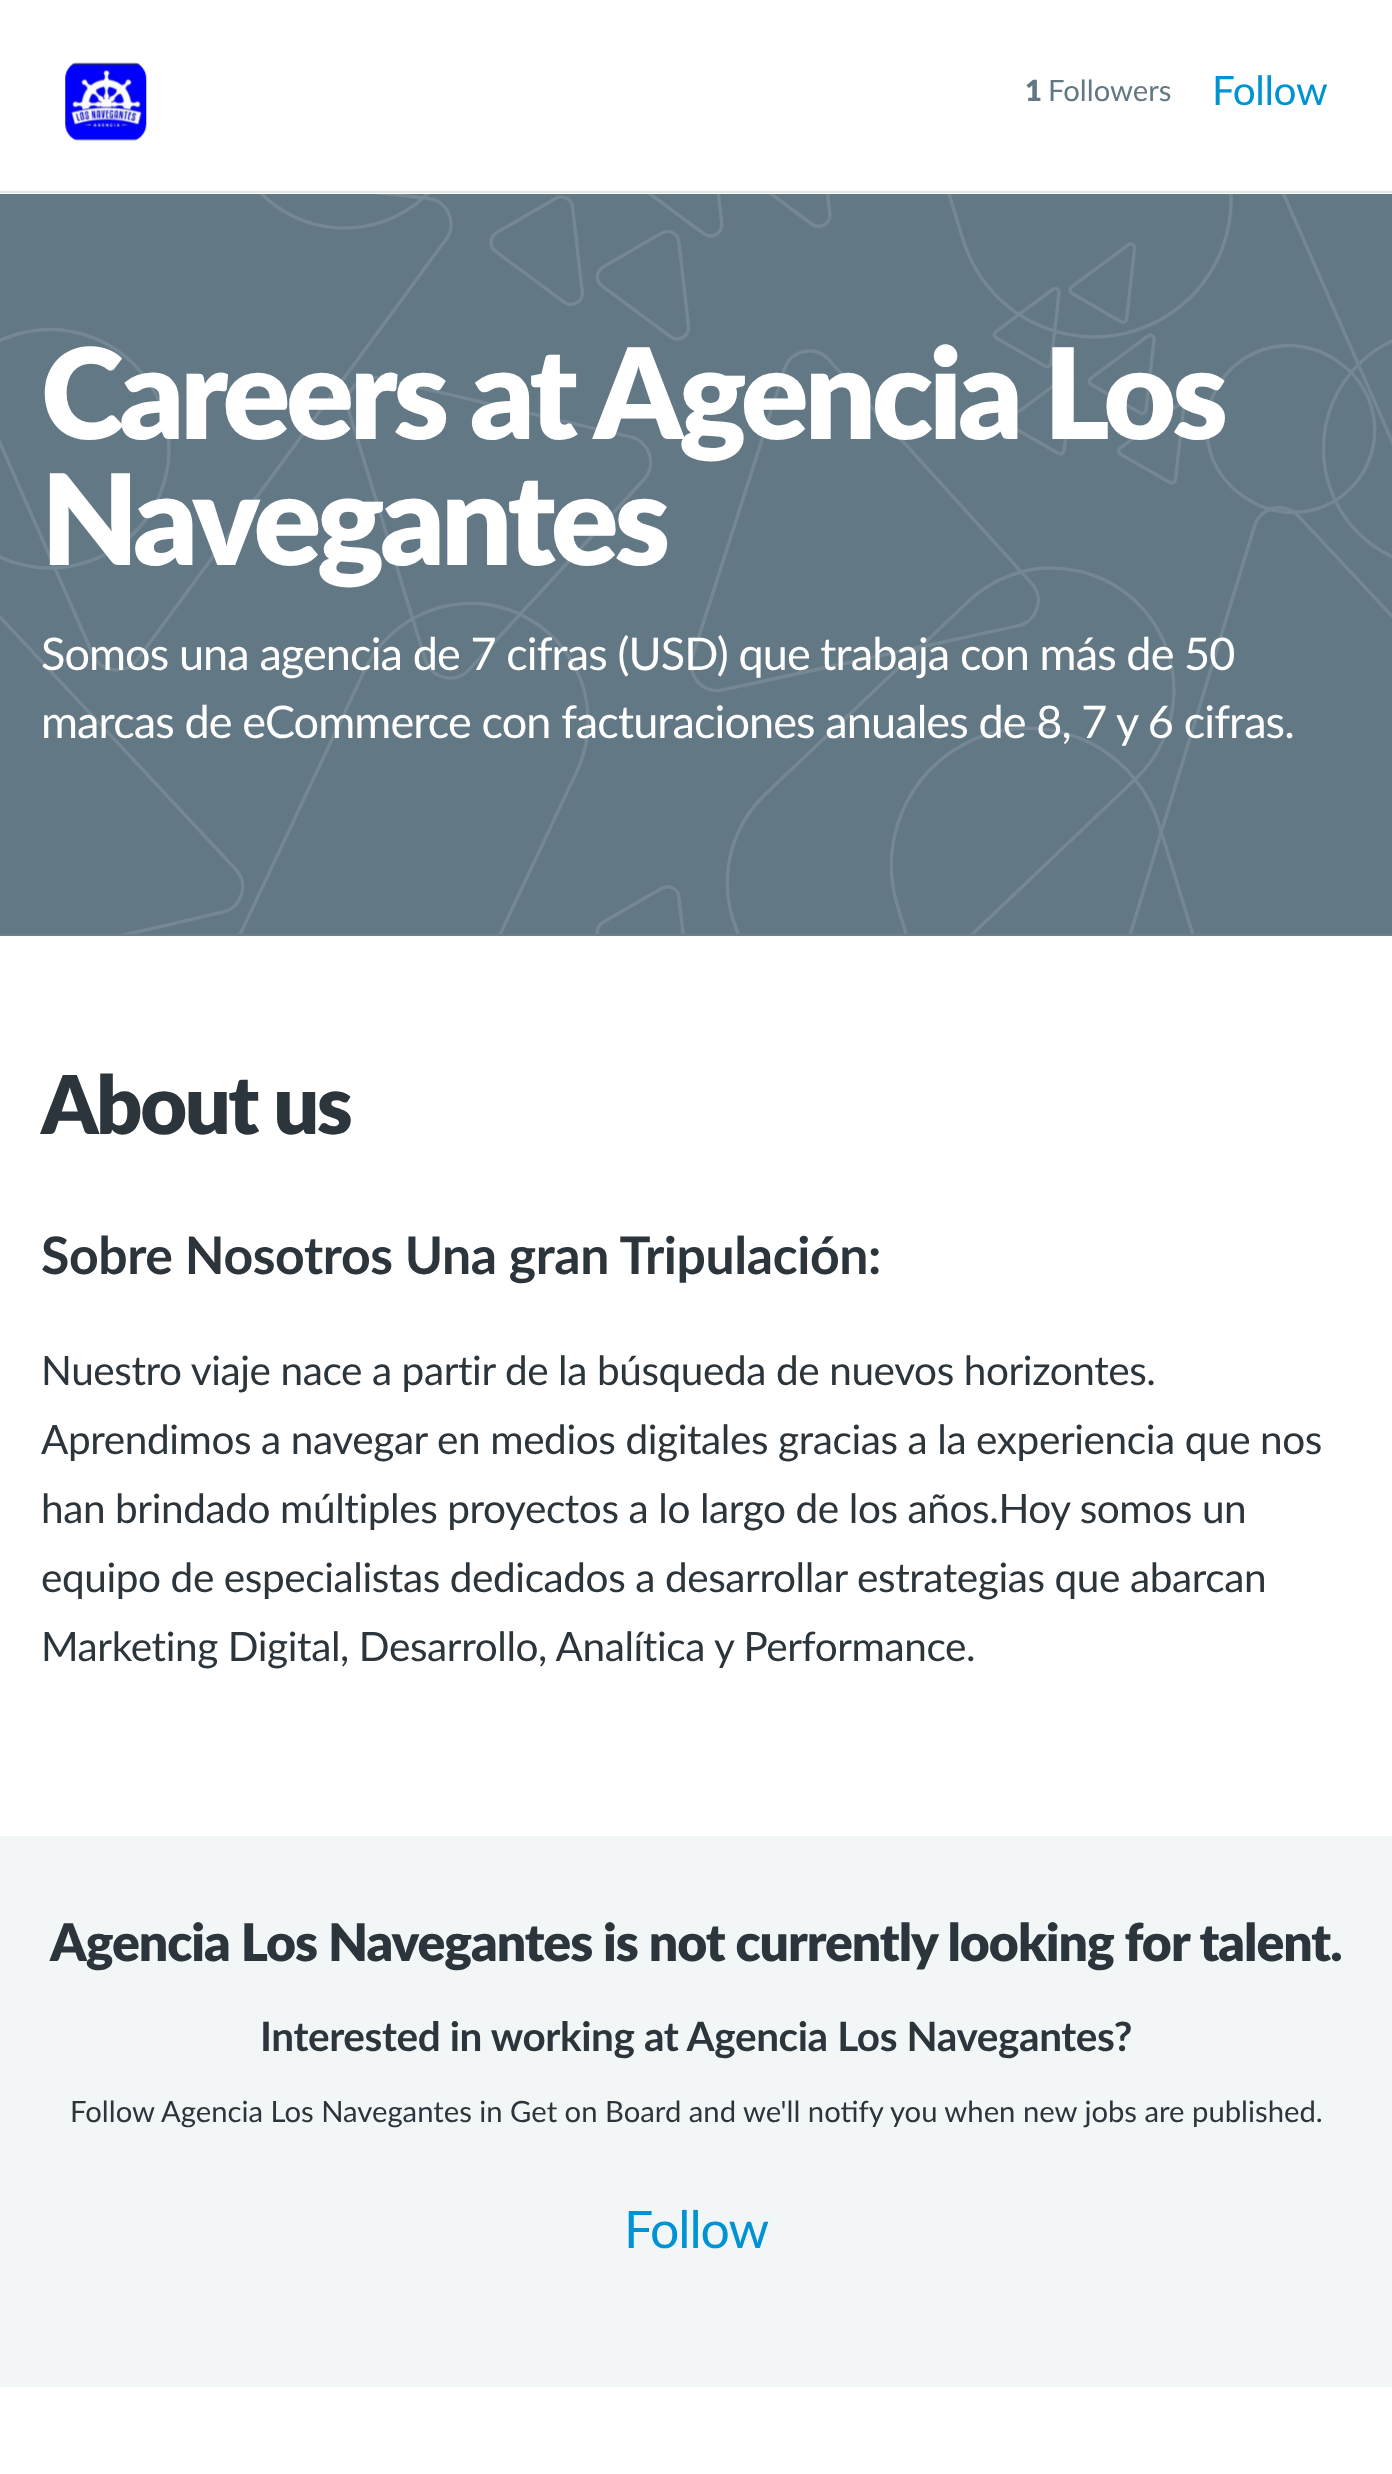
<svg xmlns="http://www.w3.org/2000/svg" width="1392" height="2474">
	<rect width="100%" height="100%" fill="#FFFFFF" />
	<rect x="0" y="191" width="1392" height="2" fill="#E1E6E7" />
	<image x="65" y="62" width="82" height="79" href="assets/img1.png" />
	<text x="1025" y="101" font-family="Lato" font-size="29.25" font-weight="900" fill="#627884">1</text>
	<text x="1048" y="101" font-family="Lato" font-size="29.25" fill="#627884">Followers</text>
	<text x="1212" y="105" font-family="Lato" font-size="40.5" letter-spacing="-0.4" fill="#0093D3">Follow</text>
	<rect x="0" y="194" width="1392" height="740" fill="#627884" />
	<rect x="0" y="934" width="1392" height="2" fill="#6B808B" />
	<image x="0" y="194" width="1392" height="740" href="assets/img2.png" />
	<g font-family="Lato" font-size="126" font-weight="900" letter-spacing="-4.4" fill="#FFFFFF">
		<text x="41" y="439">Careers at Agencia Los</text>
		<text x="41" y="565">Navegantes</text>
	</g>
	<g font-family="Lato" font-size="45" letter-spacing="-0.9" fill="#FFFFFF">
		<text x="41" y="670">Somos una agencia de 7 cifras (USD) que trabaja con más de 50</text>
		<text x="41" y="738">marcas de eCommerce con facturaciones anuales de 8, 7 y 6 cifras.</text>
	</g>
	<text x="41" y="1134" font-family="Lato" font-size="81" font-weight="900" letter-spacing="-2.5" fill="#2B353B">About us</text>
	<text x="41" y="1274" font-family="Lato" font-size="51.75" font-weight="700" letter-spacing="-0.4" fill="#2B353B">Sobre Nosotros Una gran Tripulación:</text>
	<g font-family="Lato" font-size="40.5" letter-spacing="-0.4" fill="#2B353B">
		<text x="41" y="1385">Nuestro viaje nace a partir de la búsqueda de nuevos horizontes.</text>
		<text x="41" y="1454">Aprendimos a navegar en medios digitales gracias a la experiencia que nos</text>
		<text x="41" y="1523">han brindado múltiples proyectos a lo largo de los años.Hoy somos un</text>
		<text x="41" y="1592">equipo de especialistas dedicados a desarrollar estrategias que abarcan</text>
		<text x="41" y="1661">Marketing Digital, Desarrollo, Analítica y Performance.</text>
	</g>
	<rect x="0" y="1836" width="1392" height="551" fill="#F2F6F7" />
	<text x="50" y="1961" font-family="Lato" font-size="51.75" font-weight="900" letter-spacing="-1.05" fill="#2B353B">Agencia Los Navegantes is not currently looking for talent.</text>
	<text x="260" y="2051" font-family="Lato" font-size="40.5" font-weight="700" letter-spacing="-0.4" fill="#2B353B">Interested in working at Agencia Los Navegantes?</text>
	<text x="70" y="2122" font-family="Lato" font-size="29.25" fill="#2B353B">Follow Agencia Los Navegantes in Get on Board and we'll notify you when new jobs are published.</text>
	<text x="624" y="2248" font-family="Lato" font-size="51.75" letter-spacing="-1.05" fill="#0093D3">Follow</text>
</svg>
